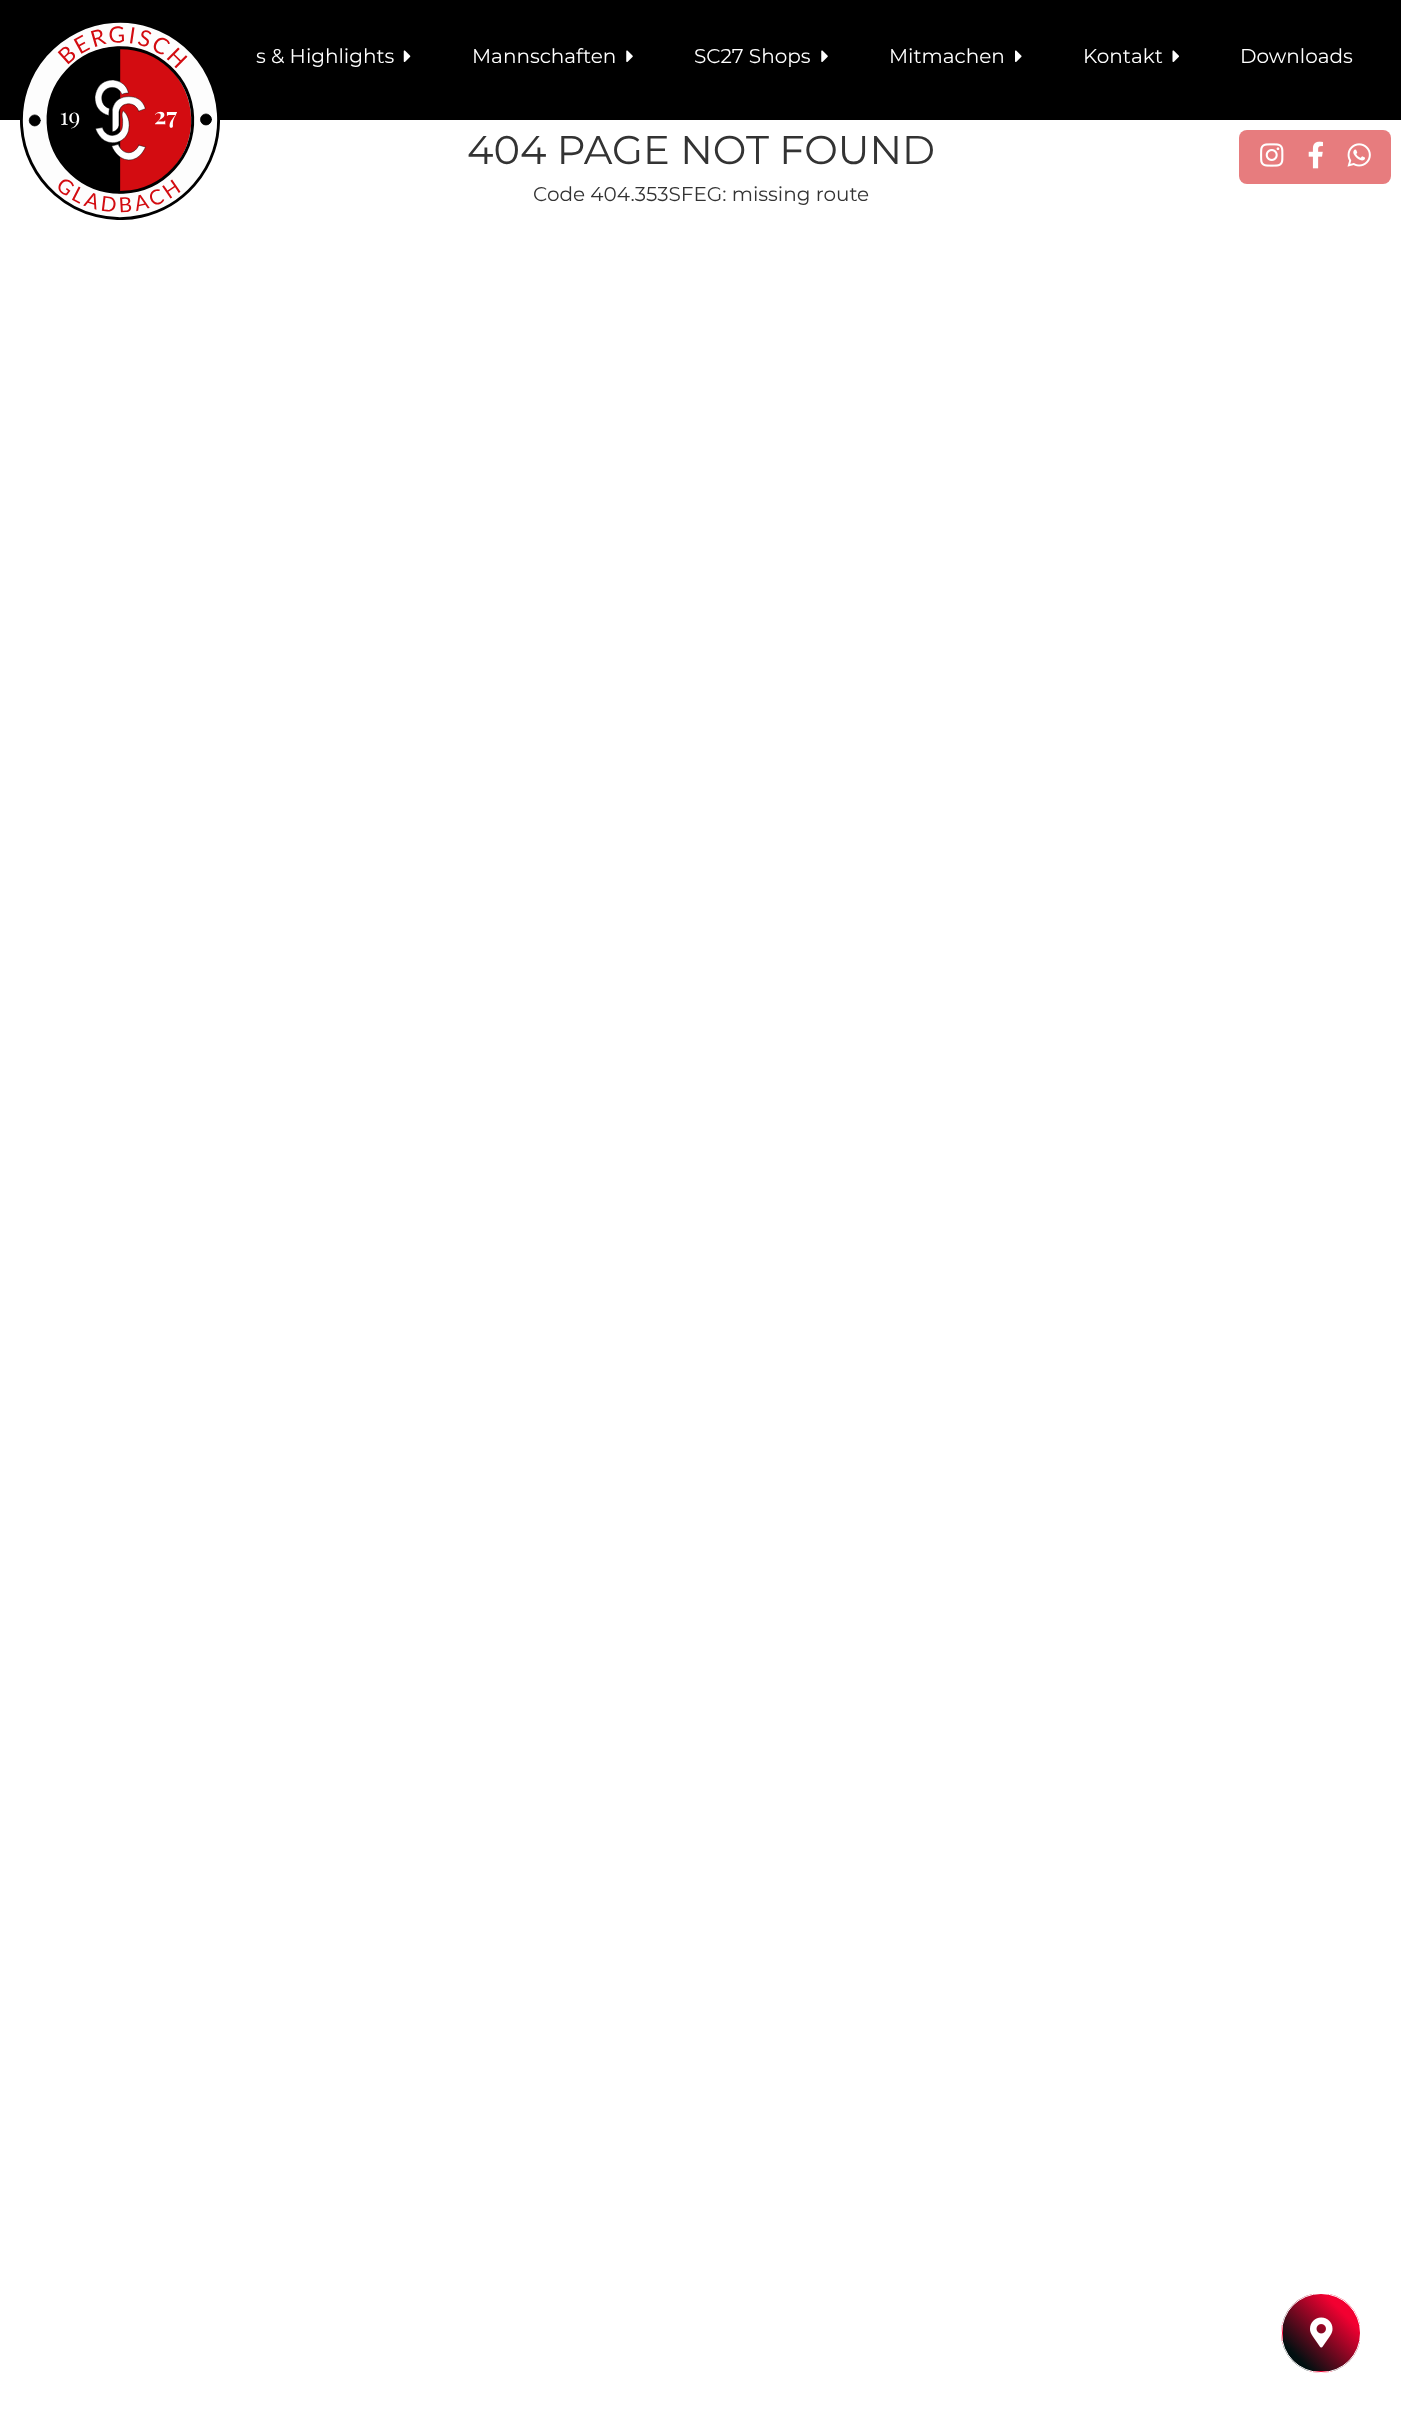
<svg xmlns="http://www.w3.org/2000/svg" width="1401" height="2412">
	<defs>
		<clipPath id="clip1"><rect x="1281" y="2293" width="80" height="80" rx="40" /></clipPath>
		<linearGradient id="g1" gradientUnits="userSpaceOnUse" x1="1205" y1="2371" x2="1283" y2="2294"><stop offset="0.18" stop-color="#010F10" /><stop offset="0.77" stop-color="#F30031" /></linearGradient>
		<linearGradient id="g2" gradientUnits="userSpaceOnUse" x1="1283" y1="2371" x2="1360" y2="2294"><stop offset="0.18" stop-color="#010F10" /><stop offset="0.77" stop-color="#F30031" /></linearGradient>
		<linearGradient id="g3" gradientUnits="userSpaceOnUse" x1="1283" y1="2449" x2="1360" y2="2371"><stop offset="0.18" stop-color="#010F10" /><stop offset="0.77" stop-color="#F30031" /></linearGradient>
	</defs>
	<rect width="100%" height="100%" fill="#FFFFFF" />
	<rect x="0" y="0" width="1401" height="120" fill="#000000" />
	<image x="20" y="22" width="200" height="198" href="assets/img1.png" />
	<text x="256" y="63" font-family="Montserrat" font-size="20" fill="#FFFFFF">s &amp; Highlights</text>
	<image x="403" y="50" width="8" height="12" href="assets/img2.png" />
	<text x="472" y="63" font-family="Montserrat" font-size="20" fill="#FFFFFF">Mannschaften</text>
	<image x="626" y="50" width="7" height="12" href="assets/img3.png" />
	<text x="694" y="63" font-family="Montserrat" font-size="20" fill="#FFFFFF">SC27 Shops</text>
	<image x="821" y="50" width="7" height="12" href="assets/img3.png" />
	<text x="889" y="63" font-family="Montserrat" font-size="20" fill="#FFFFFF">Mitmachen</text>
	<image x="1015" y="50" width="7" height="12" href="assets/img4.png" />
	<text x="1083" y="63" font-family="Montserrat" font-size="20" fill="#FFFFFF">Kontakt</text>
	<image x="1172" y="50" width="8" height="12" href="assets/img5.png" />
	<text x="1240" y="63" font-family="Montserrat" font-size="20" fill="#FFFFFF">Downloads</text>
	<text x="467" y="164" font-family="Montserrat" font-size="40" fill="#333333">404 PAGE NOT FOUND</text>
	<text x="533" y="201" font-family="Montserrat" font-size="20" fill="#333333">Code 404.353SFEG: missing route</text>
	<rect x="1239" y="130" width="152" height="54" rx="8" fill="#E77C7E" />
	<image x="1260" y="143" width="24" height="24" href="assets/img6.png" />
	<image x="1308" y="141" width="15" height="28" href="assets/img7.png" />
	<image x="1347" y="143" width="24" height="24" href="assets/img8.png" />
	<g clip-path="url(#clip1)">
		<rect x="1281" y="2320" width="2" height="26" fill="url(#g1)" />
		<rect x="1283" y="2294" width="77" height="77" fill="url(#g2)" />
		<rect x="1308" y="2371" width="26" height="2" fill="url(#g3)" />
	</g>
	<circle cx="1321" cy="2333" r="39.5" fill="none" stroke="#FFFFFF" />
	<image x="1310" y="2317" width="23" height="31" href="assets/img9.png" />
</svg>
